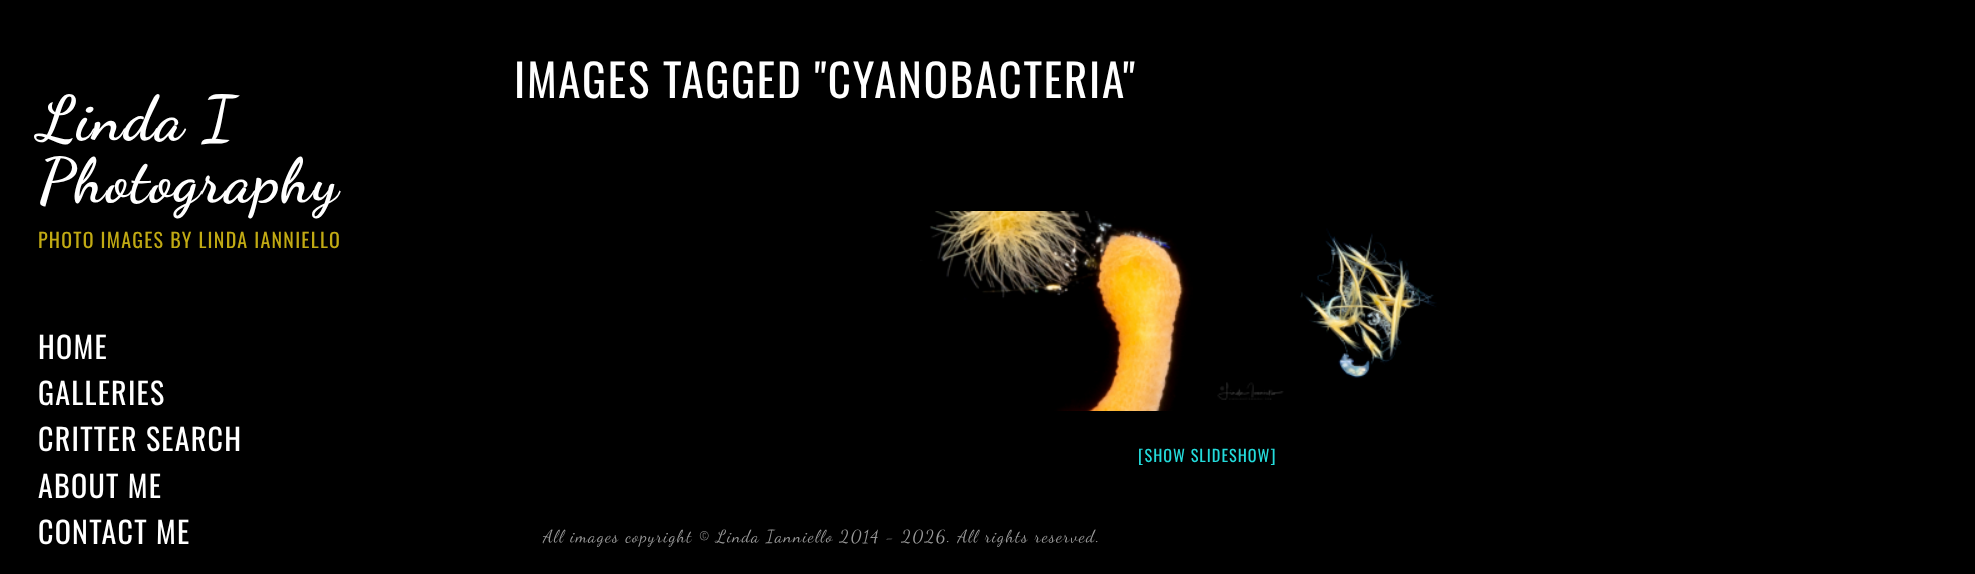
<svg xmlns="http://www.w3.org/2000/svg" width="1975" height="574">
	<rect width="100%" height="100%" fill="#000000" />
	<g font-family="Dancing Script" font-size="62.5" font-weight="700" letter-spacing="1.25" fill="#FFFFFF">
		<text x="38" y="139">Linda I</text>
		<text x="38" y="201">Photography</text>
	</g>
	<text x="38" y="248" font-family="Oswald" font-size="20" letter-spacing="1.25" fill="#C1AA13">PHOTO IMAGES BY LINDA IANNIELLO</text>
	<g font-family="Oswald" font-size="30" letter-spacing="1.25" fill="#FFFFFF">
		<text x="38" y="359">HOME</text>
		<text x="38" y="405">GALLERIES</text>
		<text x="38" y="451">CRITTER SEARCH</text>
		<text x="38" y="498">ABOUT ME</text>
		<text x="38" y="544">CONTACT ME</text>
	</g>
	<text x="514" y="98" font-family="Oswald" font-size="45" letter-spacing="1.75" fill="#FFFFFF">IMAGES TAGGED "CYANOBACTERIA"</text>
	<image x="920" y="211" width="273" height="200" href="assets/img1.png" />
	<image x="1217" y="228" width="220" height="172" href="assets/img2.png" />
	<text x="1138" y="462" font-family="Oswald" font-size="16.25" letter-spacing="1" fill="#23DBDB">[SHOW SLIDESHOW]</text>
	<text x="543" y="542" font-family="Dancing Script" font-size="17.5" letter-spacing="1.25" fill="#999999">All images copyright © Linda Ianniello 2014 - 2026. All rights reserved.</text>
</svg>
